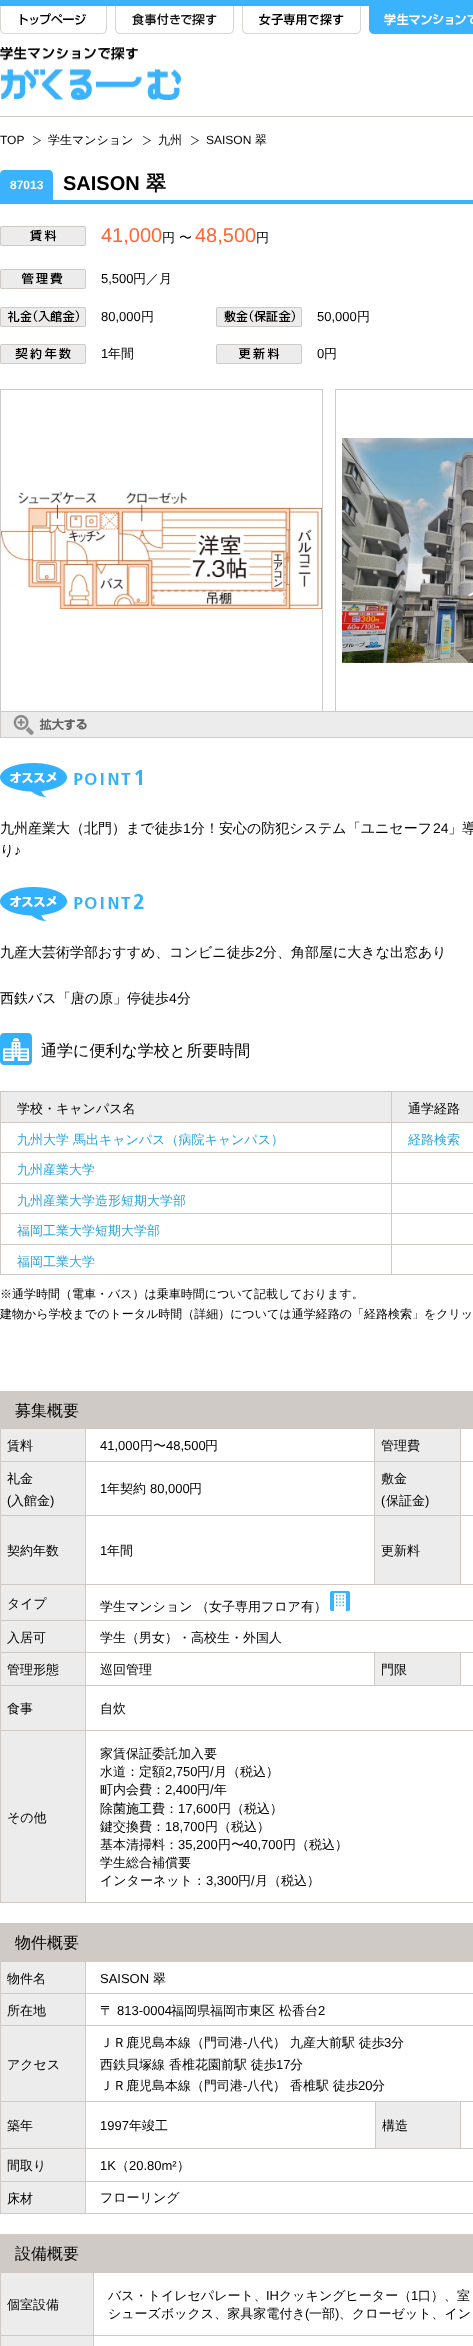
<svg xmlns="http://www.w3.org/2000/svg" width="473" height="2346">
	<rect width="100%" height="100%" fill="#FFFFFF" />
	<rect x="0" y="0" width="473" height="6" fill="#3BB2FC" />
	<image x="0" y="6" width="107" height="28" href="assets/img1.png" />
	<image x="115" y="6" width="119" height="28" href="assets/img2.png" />
	<image x="242" y="6" width="119" height="28" href="assets/img3.png" />
	<image x="369" y="6" width="104" height="28" href="assets/img4.png" />
	<image x="0" y="46" width="181" height="54" href="assets/img5.png" />
	<rect x="0" y="116" width="473" height="1" fill="#CFCAC6" />
	<text x="0" y="144" font-family="Liberation Sans" font-size="12" fill="#000000">TOP</text>
	<image x="33" y="136" width="8" height="9" href="assets/img6.png" />
	<text x="48" y="144" font-family="WenQuanYi Zen Hei" font-size="12" font-weight="500" fill="#000000">学生マンション</text>
	<image x="143" y="136" width="8" height="9" href="assets/img6.png" />
	<text x="158" y="144" font-family="WenQuanYi Zen Hei" font-size="12" font-weight="500" fill="#000000">九州</text>
	<image x="191" y="136" width="8" height="9" href="assets/img6.png" />
	<text x="206" y="144" font-family="Liberation Sans" font-size="12" fill="#000000">SAISON</text>
	<text x="255" y="144" font-family="WenQuanYi Zen Hei" font-size="12" font-weight="500" fill="#000000">翠</text>
	<rect x="0" y="200" width="473" height="4" fill="#3BB2FC" />
	<path d="M4 170H49C51 170 53 172 53 174V202H0V174C0 172 2 170 4 170Z" fill="#3BB2FC" />
	<text x="10" y="189" font-family="Liberation Sans" font-size="12" font-weight="700" fill="#FFFFFF">87013</text>
	<text x="63" y="190" font-family="Liberation Sans" font-size="20" font-weight="700" fill="#000000">SAISON</text>
	<text x="146" y="190" font-family="WenQuanYi Zen Hei" font-size="20" font-weight="700" fill="#000000">翠</text>
	<image x="0" y="226" width="86" height="20" href="assets/img7.png" />
	<text x="101" y="242" font-family="Liberation Sans" font-size="20" fill="#FF6633">41,000</text>
	<text x="162" y="242" font-family="WenQuanYi Zen Hei" font-size="13" font-weight="500" fill="#000000">円 〜</text>
	<text x="195" y="242" font-family="Liberation Sans" font-size="20" fill="#FF6633">48,500</text>
	<text x="256" y="242" font-family="WenQuanYi Zen Hei" font-size="13" font-weight="500" fill="#000000">円</text>
	<image x="0" y="269" width="86" height="20" href="assets/img8.png" />
	<text x="101" y="283" font-family="Liberation Sans" font-size="13" fill="#000000">5,500</text>
	<text x="133" y="283" font-family="WenQuanYi Zen Hei" font-size="13" font-weight="500" fill="#000000">円／月</text>
	<image x="0" y="307" width="86" height="20" href="assets/img9.png" />
	<text x="101" y="321" font-family="Liberation Sans" font-size="13" fill="#000000">80,000</text>
	<text x="141" y="321" font-family="WenQuanYi Zen Hei" font-size="13" font-weight="500" fill="#000000">円</text>
	<image x="216" y="307" width="86" height="20" href="assets/img10.png" />
	<text x="317" y="321" font-family="Liberation Sans" font-size="13" fill="#000000">50,000</text>
	<text x="357" y="321" font-family="WenQuanYi Zen Hei" font-size="13" font-weight="500" fill="#000000">円</text>
	<image x="0" y="344" width="86" height="20" href="assets/img11.png" />
	<text x="101" y="358" font-family="Liberation Sans" font-size="13" fill="#000000">1</text>
	<text x="108" y="358" font-family="WenQuanYi Zen Hei" font-size="13" font-weight="500" fill="#000000">年間</text>
	<image x="216" y="344" width="86" height="20" href="assets/img12.png" />
	<text x="317" y="358" font-family="Liberation Sans" font-size="13" fill="#000000">0</text>
	<text x="324" y="358" font-family="WenQuanYi Zen Hei" font-size="13" font-weight="500" fill="#000000">円</text>
	<rect x="0" y="389" width="323" height="1" fill="#CCCBC9" />
	<rect x="322" y="389" width="1" height="322" fill="#CCCBC9" />
	<rect x="0" y="389" width="1" height="322" fill="#CCCBC9" />
	<image x="1" y="492" width="321" height="117" href="assets/img13.png" />
	<rect x="335" y="389" width="138" height="1" fill="#CCCBC9" />
	<rect x="335" y="389" width="1" height="322" fill="#CCCBC9" />
	<image x="342" y="438" width="131" height="225" href="assets/img14.png" />
	<rect x="0.5" y="711.5" width="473" height="26" fill="#ECECEC" stroke="#CFCAC6" />
	<image x="13" y="715" width="74" height="20" href="assets/img15.png" />
	<image x="0" y="763" width="142" height="34" href="assets/img16.png" />
	<text x="0" y="833" font-family="WenQuanYi Zen Hei" font-size="14" font-weight="500" fill="#000000">九州産業大（北門）まで徒歩</text>
	<text x="183" y="833" font-family="Liberation Sans" font-size="14" fill="#000000">1</text>
	<text x="191" y="833" font-family="WenQuanYi Zen Hei" font-size="14" font-weight="500" fill="#000000">分！安心の防犯システム「ユニセーフ</text>
	<text x="433" y="833" font-family="Liberation Sans" font-size="14" fill="#000000">24</text>
	<g font-family="WenQuanYi Zen Hei" font-size="14" font-weight="500" fill="#000000">
		<text x="448" y="833">」導</text>
		<text x="0" y="855">り</text>
	</g>
	<text x="14" y="855" font-family="Liberation Sans" font-size="14" fill="#000000">♪</text>
	<image x="0" y="887" width="144" height="34" href="assets/img17.png" />
	<text x="0" y="957" font-family="WenQuanYi Zen Hei" font-size="14" font-weight="500" fill="#000000">九産大芸術学部おすすめ、コンビニ徒歩</text>
	<text x="255" y="957" font-family="Liberation Sans" font-size="14" fill="#000000">2</text>
	<g font-family="WenQuanYi Zen Hei" font-size="14" font-weight="500" fill="#000000">
		<text x="263" y="957">分、角部屋に大きな出窓あり</text>
		<text x="0" y="1003">西鉄バス「唐の原」停徒歩</text>
	</g>
	<text x="169" y="1003" font-family="Liberation Sans" font-size="14" fill="#000000">4</text>
	<text x="177" y="1003" font-family="WenQuanYi Zen Hei" font-size="14" font-weight="500" fill="#000000">分</text>
	<image x="0" y="1033" width="32" height="32" href="assets/img18.png" />
	<text x="41" y="1056" font-family="WenQuanYi Zen Hei" font-size="16" font-weight="500" fill="#000000">通学に便利な学校と所要時間</text>
	<rect x="0" y="1091" width="473" height="1" fill="#CFCAC6" />
	<rect x="0" y="1091" width="1" height="184" fill="#CFCAC6" />
	<rect x="1" y="1092" width="390" height="30" fill="#ECECEC" />
	<rect x="391" y="1274" width="82" height="1" fill="#CFCAC6" />
	<rect x="391" y="1244" width="1" height="31" fill="#CFCAC6" />
	<rect x="391" y="1244" width="82" height="1" fill="#CFCAC6" />
	<rect x="391" y="1213" width="1" height="32" fill="#CFCAC6" />
	<rect x="391" y="1213" width="82" height="1" fill="#CFCAC6" />
	<rect x="391" y="1183" width="1" height="31" fill="#CFCAC6" />
	<rect x="391" y="1183" width="82" height="1" fill="#CFCAC6" />
	<rect x="391" y="1152" width="1" height="32" fill="#CFCAC6" />
	<rect x="391" y="1152" width="82" height="1" fill="#CFCAC6" />
	<rect x="391" y="1122" width="1" height="31" fill="#CFCAC6" />
	<rect x="391" y="1122" width="82" height="1" fill="#CFCAC6" />
	<rect x="391" y="1091" width="1" height="32" fill="#CFCAC6" />
	<rect x="0" y="1122" width="392" height="1" fill="#CFCAC6" />
	<text x="17" y="1113" font-family="WenQuanYi Zen Hei" font-size="13" font-weight="500" fill="#000000">学校・キャンパス名</text>
	<rect x="392" y="1092" width="81" height="30" fill="#ECECEC" />
	<text x="408" y="1113" font-family="WenQuanYi Zen Hei" font-size="13" font-weight="500" fill="#000000">通学経路</text>
	<rect x="0" y="1152" width="392" height="1" fill="#CFCAC6" />
	<g font-family="WenQuanYi Zen Hei" font-size="13" font-weight="500" fill="#2BA5DC">
		<text x="17" y="1144">九州大学 馬出キャンパス（病院キャンパス）</text>
		<text x="408" y="1144">経路検索</text>
	</g>
	<rect x="0" y="1183" width="392" height="1" fill="#CFCAC6" />
	<text x="17" y="1174" font-family="WenQuanYi Zen Hei" font-size="13" font-weight="500" fill="#2BA5DC">九州産業大学</text>
	<rect x="0" y="1213" width="392" height="1" fill="#CFCAC6" />
	<text x="17" y="1205" font-family="WenQuanYi Zen Hei" font-size="13" font-weight="500" fill="#2BA5DC">九州産業大学造形短期大学部</text>
	<rect x="0" y="1244" width="392" height="1" fill="#CFCAC6" />
	<text x="17" y="1235" font-family="WenQuanYi Zen Hei" font-size="13" font-weight="500" fill="#2BA5DC">福岡工業大学短期大学部</text>
	<rect x="0" y="1274" width="392" height="1" fill="#CFCAC6" />
	<text x="17" y="1266" font-family="WenQuanYi Zen Hei" font-size="13" font-weight="500" fill="#2BA5DC">福岡工業大学</text>
	<g font-family="WenQuanYi Zen Hei" font-size="12" font-weight="500" fill="#000000">
		<text x="0" y="1298">※通学時間（電車・バス）は乗車時間について記載しております。</text>
		<text x="0" y="1318">建物から学校までのトータル時間（詳細）については通学経路の「経路検索」をクリッ</text>
	</g>
	<rect x="0" y="1391" width="473" height="1" fill="#CFCAC6" />
	<rect x="0" y="1391" width="1" height="512" fill="#CFCAC6" />
	<rect x="1" y="1392" width="472" height="37" fill="#CFCAC6" />
	<text x="15" y="1416" font-family="WenQuanYi Zen Hei" font-size="16" font-weight="500" fill="#000000">募集概要</text>
	<rect x="1" y="1429" width="84" height="32" fill="#ECECEC" />
	<rect x="460" y="1584" width="13" height="1" fill="#CFCAC6" />
	<rect x="460" y="1515" width="1" height="70" fill="#CFCAC6" />
	<rect x="460" y="1515" width="13" height="1" fill="#CFCAC6" />
	<rect x="460" y="1461" width="1" height="55" fill="#CFCAC6" />
	<rect x="460" y="1461" width="13" height="1" fill="#CFCAC6" />
	<rect x="460" y="1428" width="1" height="34" fill="#CFCAC6" />
	<rect x="374" y="1584" width="87" height="1" fill="#CFCAC6" />
	<rect x="374" y="1515" width="1" height="70" fill="#CFCAC6" />
	<rect x="374" y="1515" width="87" height="1" fill="#CFCAC6" />
	<rect x="374" y="1461" width="1" height="55" fill="#CFCAC6" />
	<rect x="374" y="1461" width="87" height="1" fill="#CFCAC6" />
	<rect x="374" y="1428" width="1" height="34" fill="#CFCAC6" />
	<rect x="460" y="1685" width="13" height="1" fill="#CFCAC6" />
	<rect x="460" y="1652" width="1" height="34" fill="#CFCAC6" />
	<rect x="374" y="1685" width="87" height="1" fill="#CFCAC6" />
	<rect x="374" y="1652" width="1" height="34" fill="#CFCAC6" />
	<rect x="85" y="1902" width="388" height="1" fill="#CFCAC6" />
	<rect x="85" y="1730" width="1" height="173" fill="#CFCAC6" />
	<rect x="85" y="1730" width="388" height="1" fill="#CFCAC6" />
	<rect x="85" y="1685" width="1" height="46" fill="#CFCAC6" />
	<rect x="85" y="1685" width="290" height="1" fill="#CFCAC6" />
	<rect x="85" y="1652" width="1" height="34" fill="#CFCAC6" />
	<rect x="85" y="1652" width="388" height="1" fill="#CFCAC6" />
	<rect x="85" y="1620" width="1" height="33" fill="#CFCAC6" />
	<rect x="85" y="1620" width="388" height="1" fill="#CFCAC6" />
	<rect x="85" y="1584" width="1" height="37" fill="#CFCAC6" />
	<rect x="85" y="1584" width="290" height="1" fill="#CFCAC6" />
	<rect x="85" y="1515" width="1" height="70" fill="#CFCAC6" />
	<rect x="85" y="1515" width="290" height="1" fill="#CFCAC6" />
	<rect x="85" y="1461" width="1" height="55" fill="#CFCAC6" />
	<rect x="85" y="1461" width="290" height="1" fill="#CFCAC6" />
	<rect x="85" y="1428" width="1" height="34" fill="#CFCAC6" />
	<rect x="0" y="1461" width="86" height="1" fill="#CFCAC6" />
	<text x="7" y="1450" font-family="WenQuanYi Zen Hei" font-size="13" font-weight="500" fill="#000000">賃料</text>
	<text x="100" y="1450" font-family="Liberation Sans" font-size="13" fill="#000000">41,000</text>
	<text x="140" y="1450" font-family="WenQuanYi Zen Hei" font-size="13" font-weight="500" fill="#000000">円〜</text>
	<text x="166" y="1450" font-family="Liberation Sans" font-size="13" fill="#000000">48,500</text>
	<text x="205" y="1450" font-family="WenQuanYi Zen Hei" font-size="13" font-weight="500" fill="#000000">円</text>
	<rect x="375" y="1429" width="85" height="32" fill="#ECECEC" />
	<text x="381" y="1450" font-family="WenQuanYi Zen Hei" font-size="13" font-weight="500" fill="#000000">管理費</text>
	<rect x="1" y="1462" width="84" height="53" fill="#ECECEC" />
	<rect x="0" y="1515" width="86" height="1" fill="#CFCAC6" />
	<text x="7" y="1483" font-family="WenQuanYi Zen Hei" font-size="13" font-weight="500" fill="#000000">礼金</text>
	<text x="7" y="1505" font-family="Liberation Sans" font-size="13" fill="#000000">(</text>
	<text x="11" y="1505" font-family="WenQuanYi Zen Hei" font-size="13" font-weight="500" fill="#000000">入館金</text>
	<g font-family="Liberation Sans" font-size="13" fill="#000000">
		<text x="50" y="1505">)</text>
		<text x="100" y="1493">1</text>
	</g>
	<text x="107" y="1493" font-family="WenQuanYi Zen Hei" font-size="13" font-weight="500" fill="#000000">年契約</text>
	<text x="150" y="1493" font-family="Liberation Sans" font-size="13" fill="#000000">80,000</text>
	<text x="189" y="1493" font-family="WenQuanYi Zen Hei" font-size="13" font-weight="500" fill="#000000">円</text>
	<rect x="375" y="1462" width="85" height="53" fill="#ECECEC" />
	<text x="381" y="1483" font-family="WenQuanYi Zen Hei" font-size="13" font-weight="500" fill="#000000">敷金</text>
	<text x="381" y="1505" font-family="Liberation Sans" font-size="13" fill="#000000">(</text>
	<text x="386" y="1505" font-family="WenQuanYi Zen Hei" font-size="13" font-weight="500" fill="#000000">保証金</text>
	<text x="425" y="1505" font-family="Liberation Sans" font-size="13" fill="#000000">)</text>
	<rect x="1" y="1516" width="84" height="68" fill="#ECECEC" />
	<rect x="0" y="1584" width="86" height="1" fill="#CFCAC6" />
	<text x="7" y="1555" font-family="WenQuanYi Zen Hei" font-size="13" font-weight="500" fill="#000000">契約年数</text>
	<text x="100" y="1555" font-family="Liberation Sans" font-size="13" fill="#000000">1</text>
	<text x="107" y="1555" font-family="WenQuanYi Zen Hei" font-size="13" font-weight="500" fill="#000000">年間</text>
	<rect x="375" y="1516" width="85" height="68" fill="#ECECEC" />
	<text x="381" y="1555" font-family="WenQuanYi Zen Hei" font-size="13" font-weight="500" fill="#000000">更新料</text>
	<rect x="1" y="1585" width="84" height="35" fill="#ECECEC" />
	<rect x="0" y="1620" width="86" height="1" fill="#CFCAC6" />
	<g font-family="WenQuanYi Zen Hei" font-size="13" font-weight="500" fill="#000000">
		<text x="7" y="1608">タイプ</text>
		<text x="100" y="1611">学生マンション</text>
		<text x="196" y="1611">（女子専用フロア有）</text>
	</g>
	<image x="330" y="1591" width="20" height="20" href="assets/img19.png" />
	<rect x="1" y="1621" width="84" height="31" fill="#ECECEC" />
	<rect x="0" y="1652" width="86" height="1" fill="#CFCAC6" />
	<g font-family="WenQuanYi Zen Hei" font-size="13" font-weight="500" fill="#000000">
		<text x="7" y="1642">入居可</text>
		<text x="100" y="1642">学生（男女）・高校生・外国人</text>
	</g>
	<rect x="1" y="1653" width="84" height="32" fill="#ECECEC" />
	<rect x="0" y="1685" width="86" height="1" fill="#CFCAC6" />
	<g font-family="WenQuanYi Zen Hei" font-size="13" font-weight="500" fill="#000000">
		<text x="7" y="1674">管理形態</text>
		<text x="100" y="1674">巡回管理</text>
	</g>
	<rect x="375" y="1653" width="85" height="32" fill="#ECECEC" />
	<text x="381" y="1674" font-family="WenQuanYi Zen Hei" font-size="13" font-weight="500" fill="#000000">門限</text>
	<rect x="1" y="1686" width="84" height="44" fill="#ECECEC" />
	<rect x="0" y="1730" width="86" height="1" fill="#CFCAC6" />
	<g font-family="WenQuanYi Zen Hei" font-size="13" font-weight="500" fill="#000000">
		<text x="7" y="1713">食事</text>
		<text x="100" y="1713">自炊</text>
	</g>
	<rect x="1" y="1731" width="84" height="171" fill="#ECECEC" />
	<rect x="0" y="1902" width="86" height="1" fill="#CFCAC6" />
	<g font-family="WenQuanYi Zen Hei" font-size="13" font-weight="500" fill="#000000">
		<text x="7" y="1822">その他</text>
		<text x="100" y="1758">家賃保証委託加入要</text>
		<text x="100" y="1776">水道：定額</text>
	</g>
	<text x="165" y="1776" font-family="Liberation Sans" font-size="13" fill="#000000">2,750</text>
	<text x="197" y="1776" font-family="WenQuanYi Zen Hei" font-size="13" font-weight="500" fill="#000000">円 月（税込）</text>
	<text x="210" y="1776" font-family="Liberation Sans" font-size="13" fill="#000000">/</text>
	<text x="100" y="1794" font-family="WenQuanYi Zen Hei" font-size="13" font-weight="500" fill="#000000">町内会費：</text>
	<text x="165" y="1794" font-family="Liberation Sans" font-size="13" fill="#000000">2,400</text>
	<text x="197" y="1794" font-family="WenQuanYi Zen Hei" font-size="13" font-weight="500" fill="#000000">円 年</text>
	<text x="210" y="1794" font-family="Liberation Sans" font-size="13" fill="#000000">/</text>
	<text x="100" y="1813" font-family="WenQuanYi Zen Hei" font-size="13" font-weight="500" fill="#000000">除菌施工費：</text>
	<text x="178" y="1813" font-family="Liberation Sans" font-size="13" fill="#000000">17,600</text>
	<g font-family="WenQuanYi Zen Hei" font-size="13" font-weight="500" fill="#000000">
		<text x="218" y="1813">円（税込）</text>
		<text x="100" y="1831">鍵交換費：</text>
	</g>
	<text x="165" y="1831" font-family="Liberation Sans" font-size="13" fill="#000000">18,700</text>
	<g font-family="WenQuanYi Zen Hei" font-size="13" font-weight="500" fill="#000000">
		<text x="205" y="1831">円（税込）</text>
		<text x="100" y="1849">基本清掃料：</text>
	</g>
	<text x="178" y="1849" font-family="Liberation Sans" font-size="13" fill="#000000">35,200</text>
	<text x="218" y="1849" font-family="WenQuanYi Zen Hei" font-size="13" font-weight="500" fill="#000000">円〜</text>
	<text x="243" y="1849" font-family="Liberation Sans" font-size="13" fill="#000000">40,700</text>
	<g font-family="WenQuanYi Zen Hei" font-size="13" font-weight="500" fill="#000000">
		<text x="283" y="1849">円（税込）</text>
		<text x="100" y="1867">学生総合補償要</text>
		<text x="100" y="1885">インターネット：</text>
	</g>
	<text x="206" y="1885" font-family="Liberation Sans" font-size="13" fill="#000000">3,300</text>
	<text x="238" y="1885" font-family="WenQuanYi Zen Hei" font-size="13" font-weight="500" fill="#000000">円 月（税込）</text>
	<text x="251" y="1885" font-family="Liberation Sans" font-size="13" fill="#000000">/</text>
	<rect x="0" y="1923" width="473" height="1" fill="#CFCAC6" />
	<rect x="0" y="1923" width="1" height="291" fill="#CFCAC6" />
	<rect x="1" y="1924" width="472" height="37" fill="#CFCAC6" />
	<rect x="460" y="2148" width="13" height="1" fill="#CFCAC6" />
	<rect x="460" y="2101" width="1" height="48" fill="#CFCAC6" />
	<rect x="375" y="2148" width="86" height="1" fill="#CFCAC6" />
	<rect x="375" y="2101" width="1" height="48" fill="#CFCAC6" />
	<rect x="85" y="2213" width="388" height="1" fill="#CFCAC6" />
	<rect x="85" y="2181" width="1" height="33" fill="#CFCAC6" />
	<rect x="85" y="2181" width="388" height="1" fill="#CFCAC6" />
	<rect x="85" y="2148" width="1" height="34" fill="#CFCAC6" />
	<rect x="85" y="2148" width="291" height="1" fill="#CFCAC6" />
	<rect x="85" y="2101" width="1" height="48" fill="#CFCAC6" />
	<rect x="85" y="2101" width="388" height="1" fill="#CFCAC6" />
	<rect x="85" y="2025" width="1" height="77" fill="#CFCAC6" />
	<rect x="85" y="2025" width="388" height="1" fill="#CFCAC6" />
	<rect x="85" y="1993" width="1" height="33" fill="#CFCAC6" />
	<rect x="85" y="1993" width="388" height="1" fill="#CFCAC6" />
	<rect x="85" y="1961" width="1" height="33" fill="#CFCAC6" />
	<rect x="0" y="1961" width="473" height="1" fill="#CFCAC6" />
	<text x="15" y="1948" font-family="WenQuanYi Zen Hei" font-size="16" font-weight="500" fill="#000000">物件概要</text>
	<rect x="1" y="1962" width="84" height="31" fill="#ECECEC" />
	<rect x="0" y="1993" width="86" height="1" fill="#CFCAC6" />
	<text x="7" y="1983" font-family="WenQuanYi Zen Hei" font-size="13" font-weight="500" fill="#000000">物件名</text>
	<text x="100" y="1983" font-family="Liberation Sans" font-size="13" fill="#000000">SAISON</text>
	<text x="153" y="1983" font-family="WenQuanYi Zen Hei" font-size="13" font-weight="500" fill="#000000">翠</text>
	<rect x="1" y="1994" width="84" height="31" fill="#ECECEC" />
	<rect x="0" y="2025" width="86" height="1" fill="#CFCAC6" />
	<g font-family="WenQuanYi Zen Hei" font-size="13" font-weight="500" fill="#000000">
		<text x="7" y="2015">所在地</text>
		<text x="100" y="2015">〒</text>
	</g>
	<text x="117" y="2015" font-family="Liberation Sans" font-size="13" fill="#000000">813-0004</text>
	<g font-family="WenQuanYi Zen Hei" font-size="13" font-weight="500" fill="#000000">
		<text x="171" y="2015">福岡県福岡市東区</text>
		<text x="279" y="2015">松香台</text>
	</g>
	<text x="318" y="2015" font-family="Liberation Sans" font-size="13" fill="#000000">2</text>
	<rect x="1" y="2026" width="84" height="75" fill="#ECECEC" />
	<rect x="0" y="2101" width="86" height="1" fill="#CFCAC6" />
	<g font-family="WenQuanYi Zen Hei" font-size="13" font-weight="500" fill="#000000">
		<text x="7" y="2069">アクセス</text>
		<text x="100" y="2047">ＪＲ鹿児島本線（門司港</text>
	</g>
	<text x="243" y="2047" font-family="Liberation Sans" font-size="13" fill="#000000">-</text>
	<text x="247" y="2047" font-family="WenQuanYi Zen Hei" font-size="13" font-weight="500" fill="#000000">八代） 九産大前駅 徒歩</text>
	<text x="384" y="2047" font-family="Liberation Sans" font-size="13" fill="#000000">3</text>
	<g font-family="WenQuanYi Zen Hei" font-size="13" font-weight="500" fill="#000000">
		<text x="391" y="2047">分</text>
		<text x="100" y="2069">西鉄貝塚線 香椎花園前駅 徒歩</text>
	</g>
	<text x="276" y="2069" font-family="Liberation Sans" font-size="13" fill="#000000">17</text>
	<g font-family="WenQuanYi Zen Hei" font-size="13" font-weight="500" fill="#000000">
		<text x="290" y="2069">分</text>
		<text x="100" y="2090">ＪＲ鹿児島本線（門司港</text>
	</g>
	<text x="243" y="2090" font-family="Liberation Sans" font-size="13" fill="#000000">-</text>
	<text x="247" y="2090" font-family="WenQuanYi Zen Hei" font-size="13" font-weight="500" fill="#000000">八代） 香椎駅 徒歩</text>
	<text x="358" y="2090" font-family="Liberation Sans" font-size="13" fill="#000000">20</text>
	<text x="372" y="2090" font-family="WenQuanYi Zen Hei" font-size="13" font-weight="500" fill="#000000">分</text>
	<rect x="1" y="2102" width="84" height="46" fill="#ECECEC" />
	<rect x="0" y="2148" width="86" height="1" fill="#CFCAC6" />
	<text x="7" y="2130" font-family="WenQuanYi Zen Hei" font-size="13" font-weight="500" fill="#000000">築年</text>
	<text x="100" y="2130" font-family="Liberation Sans" font-size="13" fill="#000000">1997</text>
	<text x="129" y="2130" font-family="WenQuanYi Zen Hei" font-size="13" font-weight="500" fill="#000000">年竣工</text>
	<rect x="376" y="2102" width="84" height="46" fill="#ECECEC" />
	<text x="382" y="2130" font-family="WenQuanYi Zen Hei" font-size="13" font-weight="500" fill="#000000">構造</text>
	<rect x="1" y="2149" width="84" height="32" fill="#ECECEC" />
	<rect x="0" y="2181" width="86" height="1" fill="#CFCAC6" />
	<text x="7" y="2170" font-family="WenQuanYi Zen Hei" font-size="13" font-weight="500" fill="#000000">間取り</text>
	<text x="100" y="2170" font-family="Liberation Sans" font-size="13" fill="#000000">1K</text>
	<text x="116" y="2170" font-family="WenQuanYi Zen Hei" font-size="13" font-weight="500" fill="#000000">（</text>
	<text x="129" y="2170" font-family="Liberation Sans" font-size="13" fill="#000000">20.80m²</text>
	<text x="177" y="2170" font-family="WenQuanYi Zen Hei" font-size="13" font-weight="500" fill="#000000">）</text>
	<rect x="1" y="2182" width="84" height="31" fill="#ECECEC" />
	<rect x="0" y="2213" width="86" height="1" fill="#CFCAC6" />
	<g font-family="WenQuanYi Zen Hei" font-size="13" font-weight="500" fill="#000000">
		<text x="7" y="2203">床材</text>
		<text x="100" y="2202">フローリング</text>
	</g>
	<rect x="0" y="2234" width="473" height="1" fill="#CFCAC6" />
	<rect x="0" y="2234" width="1" height="112" fill="#CFCAC6" />
	<rect x="1" y="2235" width="472" height="37" fill="#CFCAC6" />
	<rect x="93" y="2335" width="1" height="11" fill="#CFCAC6" />
	<rect x="93" y="2335" width="380" height="1" fill="#CFCAC6" />
	<rect x="93" y="2272" width="1" height="64" fill="#CFCAC6" />
	<rect x="0" y="2272" width="473" height="1" fill="#CFCAC6" />
	<text x="15" y="2259" font-family="WenQuanYi Zen Hei" font-size="16" font-weight="500" fill="#000000">設備概要</text>
	<rect x="1" y="2273" width="92" height="62" fill="#ECECEC" />
	<rect x="0" y="2335" width="94" height="1" fill="#CFCAC6" />
	<g font-family="WenQuanYi Zen Hei" font-size="13" font-weight="500" fill="#000000">
		<text x="7" y="2309">個室設備</text>
		<text x="108" y="2300">バス・トイレセパレート、</text>
	</g>
	<text x="266" y="2300" font-family="Liberation Sans" font-size="13" fill="#000000">IH</text>
	<text x="279" y="2300" font-family="WenQuanYi Zen Hei" font-size="13" font-weight="500" fill="#000000">クッキングヒーター（</text>
	<text x="411" y="2300" font-family="Liberation Sans" font-size="13" fill="#000000">1</text>
	<g font-family="WenQuanYi Zen Hei" font-size="13" font-weight="500" fill="#000000">
		<text x="418" y="2300">口）、室</text>
		<text x="108" y="2318">シューズボックス、家具家電付き</text>
	</g>
	<text x="305" y="2318" font-family="Liberation Sans" font-size="13" fill="#000000">(</text>
	<text x="309" y="2318" font-family="WenQuanYi Zen Hei" font-size="13" font-weight="500" fill="#000000">一部</text>
	<text x="335" y="2318" font-family="Liberation Sans" font-size="13" fill="#000000">)</text>
	<text x="339" y="2318" font-family="WenQuanYi Zen Hei" font-size="13" font-weight="500" fill="#000000">、クローゼット、イン</text>
	<rect x="1" y="2336" width="92" height="10" fill="#ECECEC" />
</svg>
